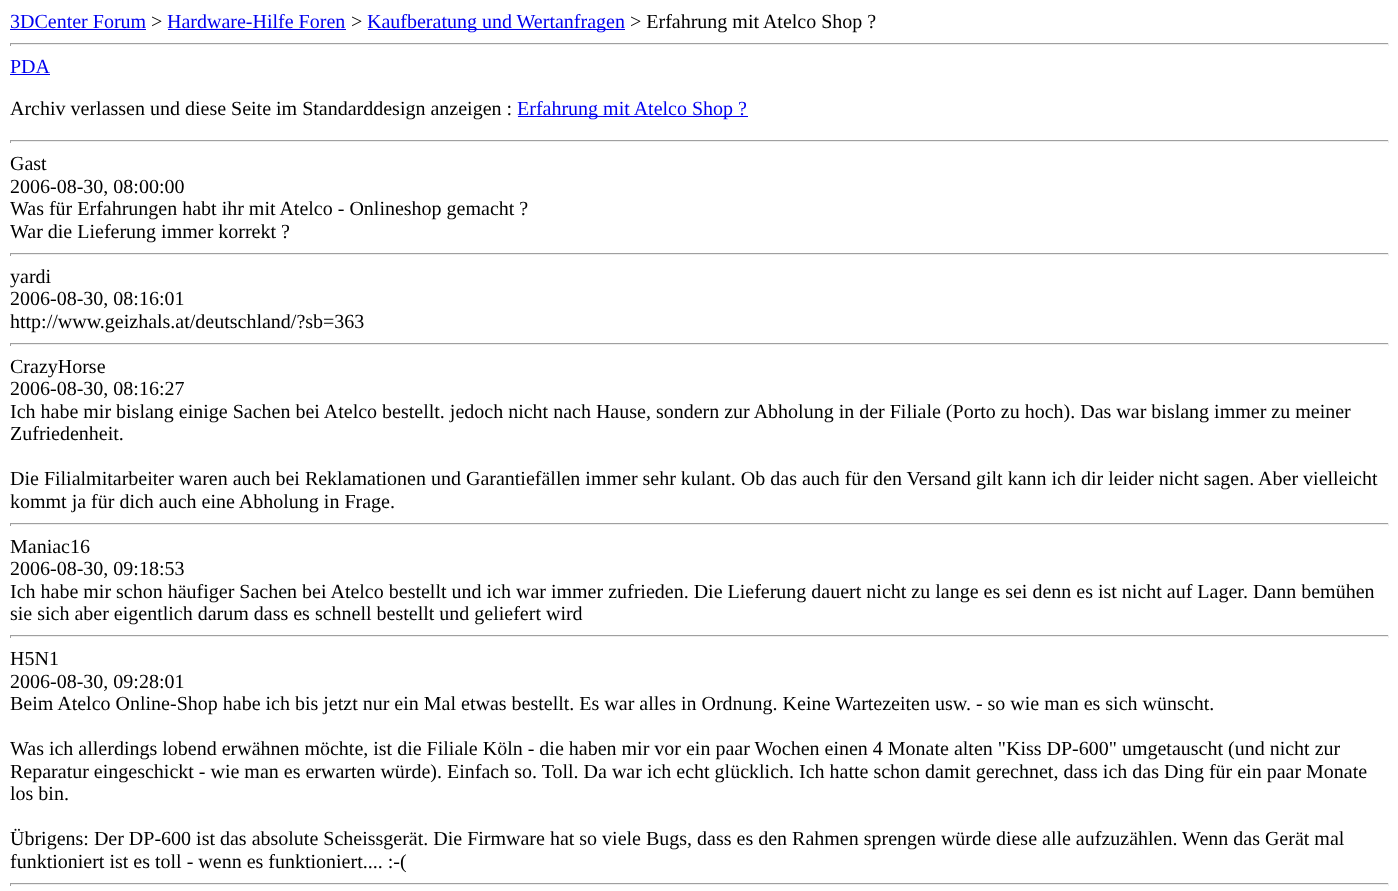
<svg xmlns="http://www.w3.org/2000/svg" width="1398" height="891">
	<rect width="100%" height="100%" fill="#FFFFFF" />
	<text x="10" y="28" font-family="Liberation Serif" font-size="20" fill="#0000EE">3DCenter Forum</text>
	<rect x="10" y="29" width="136" height="1" fill="#0000EE" />
	<text x="151" y="28" font-family="Liberation Serif" font-size="20" fill="#000000">&gt;</text>
	<text x="167" y="28" font-family="Liberation Serif" font-size="20" fill="#0000EE">Hardware-Hilfe Foren</text>
	<rect x="168" y="29" width="178" height="1" fill="#0000EE" />
	<text x="351" y="28" font-family="Liberation Serif" font-size="20" fill="#000000">&gt;</text>
	<rect x="368" y="29" width="257" height="1" fill="#0000EE" />
	<text x="367" y="28" font-family="Liberation Serif" font-size="20" fill="#0000EE">Kaufberatung und Wertanfragen</text>
	<text x="630" y="28" font-family="Liberation Serif" font-size="20" fill="#000000">&gt; Erfahrung mit Atelco Shop ?</text>
	<rect x="10" y="43" width="1379" height="1" fill="#9F9F9F" />
	<rect x="1388" y="43" width="1" height="3" fill="#EEEEEE" />
	<rect x="10" y="44" width="1379" height="1" fill="#EEEEEE" />
	<rect x="10" y="43" width="1" height="3" fill="#9F9F9F" />
	<text x="10" y="73" font-family="Liberation Serif" font-size="20" fill="#0000EE">PDA</text>
	<rect x="10" y="74" width="40" height="1" fill="#0000EE" />
	<text x="10" y="115" font-family="Liberation Serif" font-size="20" fill="#000000">Archiv verlassen und diese Seite im Standarddesign anzeigen :</text>
	<rect x="518" y="116" width="230" height="1" fill="#0000EE" />
	<text x="517" y="115" font-family="Liberation Serif" font-size="20" fill="#0000EE">Erfahrung mit Atelco Shop ?</text>
	<rect x="10" y="140" width="1379" height="1" fill="#9F9F9F" />
	<rect x="1388" y="140" width="1" height="3" fill="#EEEEEE" />
	<rect x="10" y="141" width="1379" height="1" fill="#EEEEEE" />
	<rect x="10" y="140" width="1" height="3" fill="#9F9F9F" />
	<g font-family="Liberation Serif" font-size="20" fill="#000000">
		<text x="10" y="170">Gast</text>
		<text x="10" y="193">2006-08-30, 08:00:00</text>
		<text x="10" y="215">Was für Erfahrungen habt ihr mit Atelco - Onlineshop gemacht ?</text>
		<text x="10" y="238">War die Lieferung immer korrekt ?</text>
	</g>
	<rect x="10" y="253" width="1379" height="1" fill="#9F9F9F" />
	<rect x="1388" y="253" width="1" height="3" fill="#EEEEEE" />
	<rect x="10" y="254" width="1379" height="1" fill="#EEEEEE" />
	<rect x="10" y="253" width="1" height="3" fill="#9F9F9F" />
	<g font-family="Liberation Serif" font-size="20" fill="#000000">
		<text x="10" y="283">yardi</text>
		<text x="10" y="305">2006-08-30, 08:16:01</text>
		<text x="10" y="328">http://www.geizhals.at/deutschland/?sb=363</text>
	</g>
	<rect x="10" y="343" width="1379" height="1" fill="#9F9F9F" />
	<rect x="1388" y="343" width="1" height="3" fill="#EEEEEE" />
	<rect x="10" y="344" width="1379" height="1" fill="#EEEEEE" />
	<rect x="10" y="343" width="1" height="3" fill="#9F9F9F" />
	<g font-family="Liberation Serif" font-size="20" fill="#000000">
		<text x="10" y="373">CrazyHorse</text>
		<text x="10" y="395">2006-08-30, 08:16:27</text>
		<text x="10" y="418">Ich habe mir bislang einige Sachen bei Atelco bestellt. jedoch nicht nach Hause, sondern zur Abholung in der Filiale (Porto zu hoch). Das war bislang immer zu meiner</text>
		<text x="10" y="440">Zufriedenheit.</text>
		<text x="10" y="485">Die Filialmitarbeiter waren auch bei Reklamationen und Garantiefällen immer sehr kulant. Ob das auch für den Versand gilt kann ich dir leider nicht sagen. Aber vielleicht</text>
		<text x="10" y="508">kommt ja für dich auch eine Abholung in Frage.</text>
	</g>
	<rect x="10" y="523" width="1379" height="1" fill="#9F9F9F" />
	<rect x="1388" y="523" width="1" height="3" fill="#EEEEEE" />
	<rect x="10" y="524" width="1379" height="1" fill="#EEEEEE" />
	<rect x="10" y="523" width="1" height="3" fill="#9F9F9F" />
	<g font-family="Liberation Serif" font-size="20" fill="#000000">
		<text x="10" y="553">Maniac16</text>
		<text x="10" y="575">2006-08-30, 09:18:53</text>
		<text x="10" y="598">Ich habe mir schon häufiger Sachen bei Atelco bestellt und ich war immer zufrieden. Die Lieferung dauert nicht zu lange es sei denn es ist nicht auf Lager. Dann bemühen</text>
		<text x="10" y="620">sie sich aber eigentlich darum dass es schnell bestellt und geliefert wird</text>
	</g>
	<rect x="10" y="635" width="1379" height="1" fill="#9F9F9F" />
	<rect x="1388" y="635" width="1" height="3" fill="#EEEEEE" />
	<rect x="10" y="636" width="1379" height="1" fill="#EEEEEE" />
	<rect x="10" y="635" width="1" height="3" fill="#9F9F9F" />
	<g font-family="Liberation Serif" font-size="20" fill="#000000">
		<text x="10" y="665">H5N1</text>
		<text x="10" y="688">2006-08-30, 09:28:01</text>
		<text x="10" y="710">Beim Atelco Online-Shop habe ich bis jetzt nur ein Mal etwas bestellt. Es war alles in Ordnung. Keine Wartezeiten usw. - so wie man es sich wünscht.</text>
		<text x="10" y="755">Was ich allerdings lobend erwähnen möchte, ist die Filiale Köln - die haben mir vor ein paar Wochen einen 4 Monate alten "Kiss DP-600" umgetauscht (und nicht zur</text>
		<text x="10" y="778">Reparatur eingeschickt - wie man es erwarten würde). Einfach so. Toll. Da war ich echt glücklich. Ich hatte schon damit gerechnet, dass ich das Ding für ein paar Monate</text>
		<text x="10" y="800">los bin.</text>
		<text x="10" y="845">Übrigens: Der DP-600 ist das absolute Scheissgerät. Die Firmware hat so viele Bugs, dass es den Rahmen sprengen würde diese alle aufzuzählen. Wenn das Gerät mal</text>
		<text x="10" y="868">funktioniert ist es toll - wenn es funktioniert.... :-(</text>
	</g>
	<rect x="10" y="883" width="1379" height="1" fill="#9F9F9F" />
	<rect x="1388" y="883" width="1" height="3" fill="#EEEEEE" />
	<rect x="10" y="884" width="1379" height="1" fill="#EEEEEE" />
	<rect x="10" y="883" width="1" height="3" fill="#9F9F9F" />
</svg>
